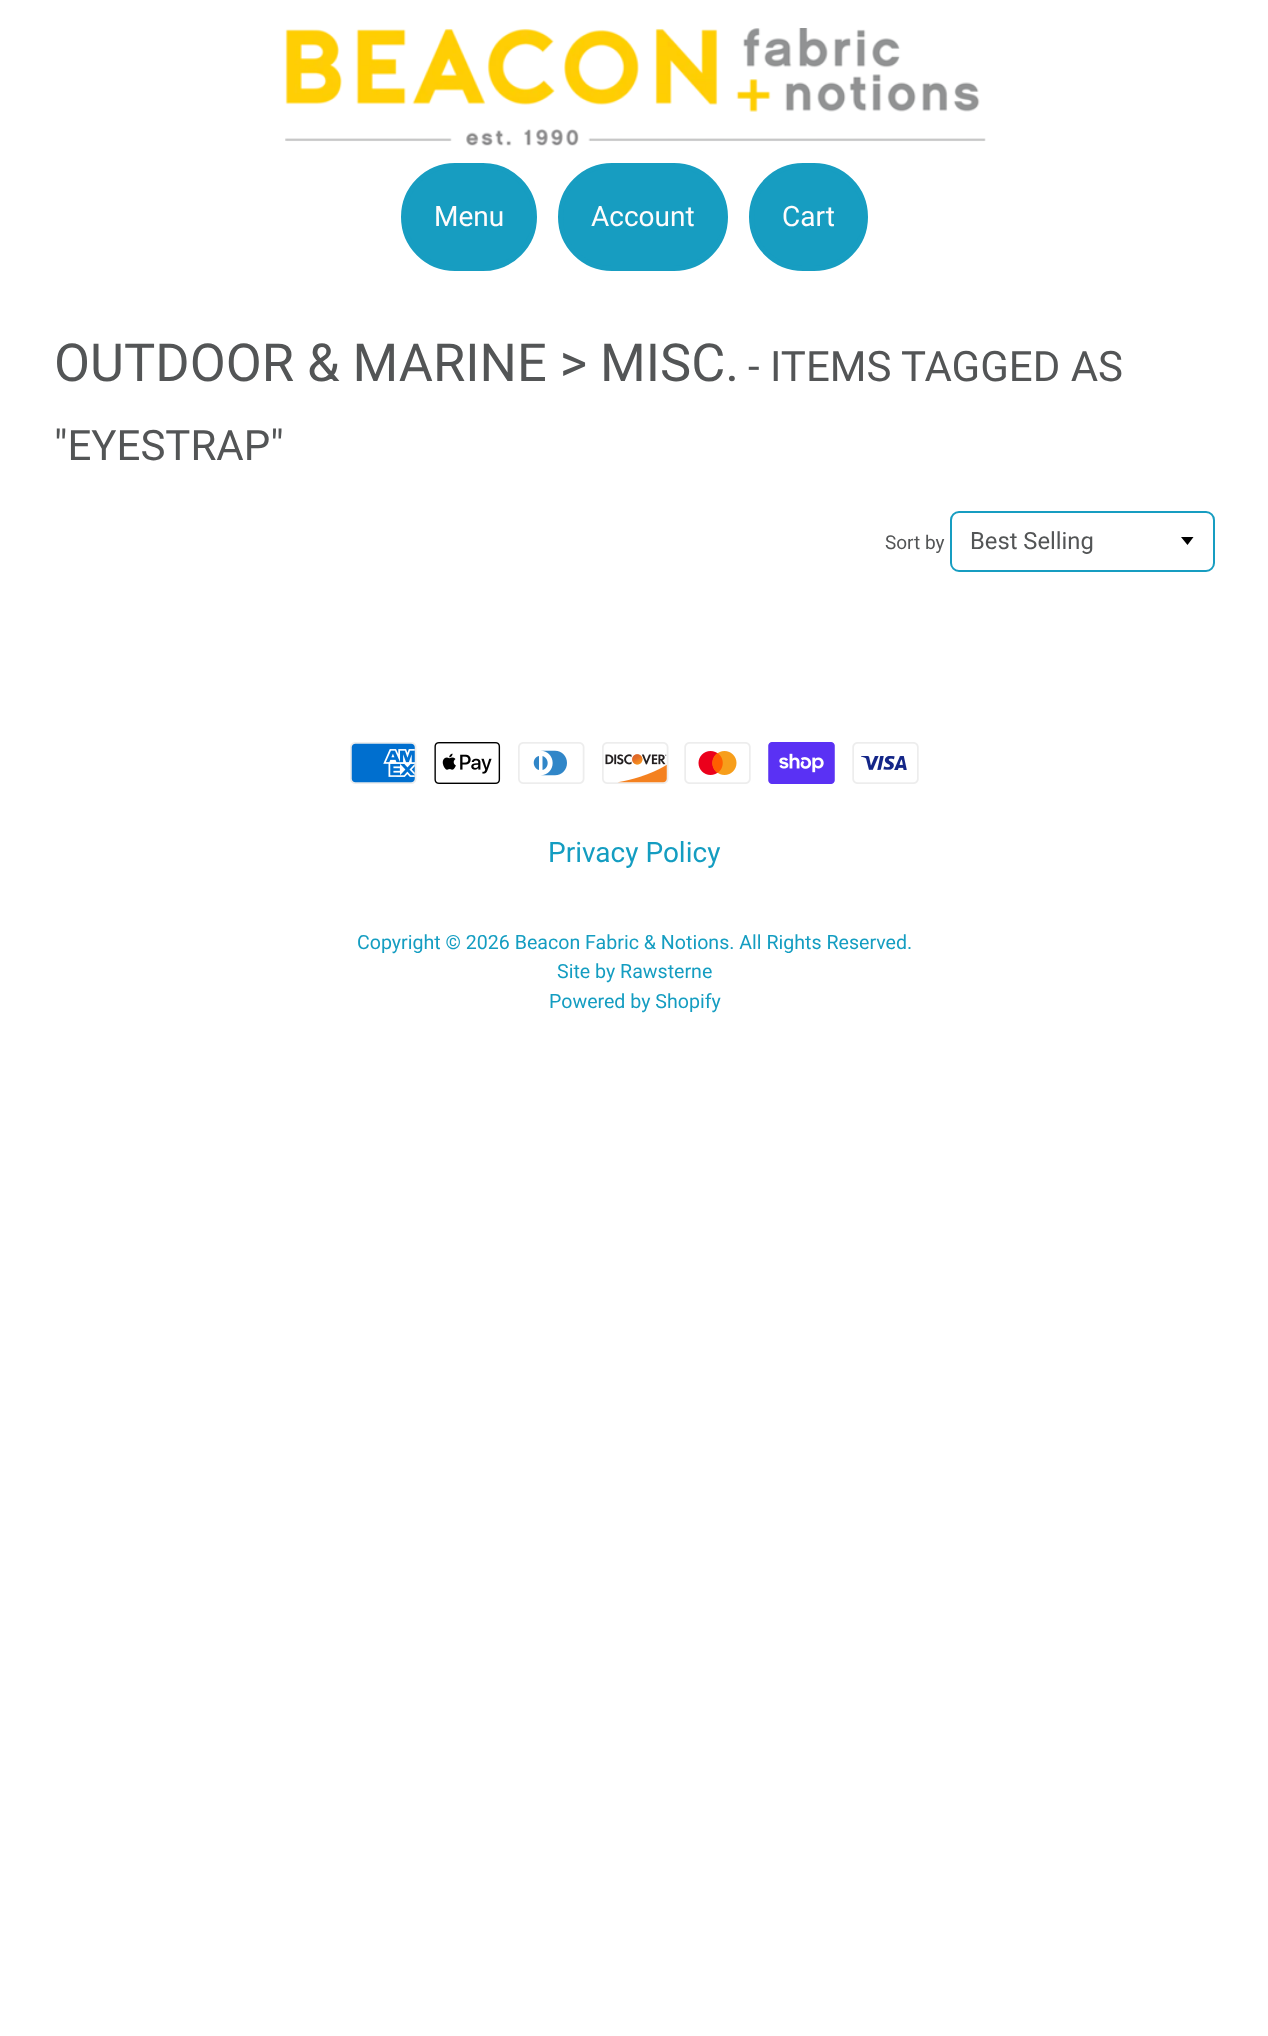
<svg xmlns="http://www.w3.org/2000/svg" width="1268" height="2036">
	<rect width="100%" height="100%" fill="#FFFFFF" />
	<image x="285" y="28" width="701" height="118" href="assets/img1.png" />
	<rect x="403.5" y="165.5" width="131" height="103" rx="51.5" fill="#179DC1" stroke="#179DC1" stroke-width="5" />
	<text x="434" y="226" font-family="Roboto" font-size="28" fill="#FFFCFC">Menu</text>
	<rect x="560.5" y="165.5" width="165" height="103" rx="51.5" fill="#179DC1" stroke="#179DC1" stroke-width="5" />
	<text x="591" y="226" font-family="Roboto" font-size="28" fill="#FFFCFC">Account</text>
	<rect x="751.5" y="165.5" width="114" height="103" rx="51.5" fill="#179DC1" stroke="#179DC1" stroke-width="5" />
	<text x="782" y="226" font-family="Roboto" font-size="28" fill="#FFFCFC">Cart</text>
	<text x="54" y="381" font-family="Roboto" font-size="52.4" fill="#535556">OUTDOOR &amp; MARINE &gt; MISC.</text>
	<g font-family="Roboto" font-size="42" fill="#535556">
		<text x="748" y="381">- ITEMS TAGGED AS</text>
		<text x="54" y="460">"EYESTRAP"</text>
	</g>
	<text x="885" y="549" font-family="Roboto" font-size="19" fill="#535556">Sort by</text>
	<path d="M1181 537L1187.5 545L1193.5 537Z" fill="#000000" />
	<rect x="951" y="512" width="263" height="59" rx="8" fill="none" stroke="#179DC1" stroke-width="2" />
	<text x="970" y="549" font-family="Roboto" font-size="23.75" fill="#535556">Best Selling</text>
	<image x="350" y="742" width="67" height="42" href="assets/img2.png" />
	<image x="434" y="742" width="67" height="42" href="assets/img3.png" />
	<image x="518" y="742" width="67" height="42" href="assets/img4.png" />
	<image x="602" y="742" width="67" height="42" href="assets/img5.png" />
	<image x="684" y="742" width="67" height="42" href="assets/img6.png" />
	<image x="768" y="742" width="67" height="42" href="assets/img7.png" />
	<image x="852" y="742" width="67" height="42" href="assets/img8.png" />
	<text x="548" y="862" font-family="Roboto" font-size="28" fill="#149DC1">Privacy Policy</text>
	<g font-family="Roboto" font-size="19.6" fill="#149DC1">
		<text x="357" y="949">Copyright © 2026 Beacon Fabric &amp; Notions. All Rights Reserved.</text>
		<text x="557" y="978">Site by Rawsterne</text>
		<text x="549" y="1008">Powered by Shopify</text>
	</g>
</svg>
